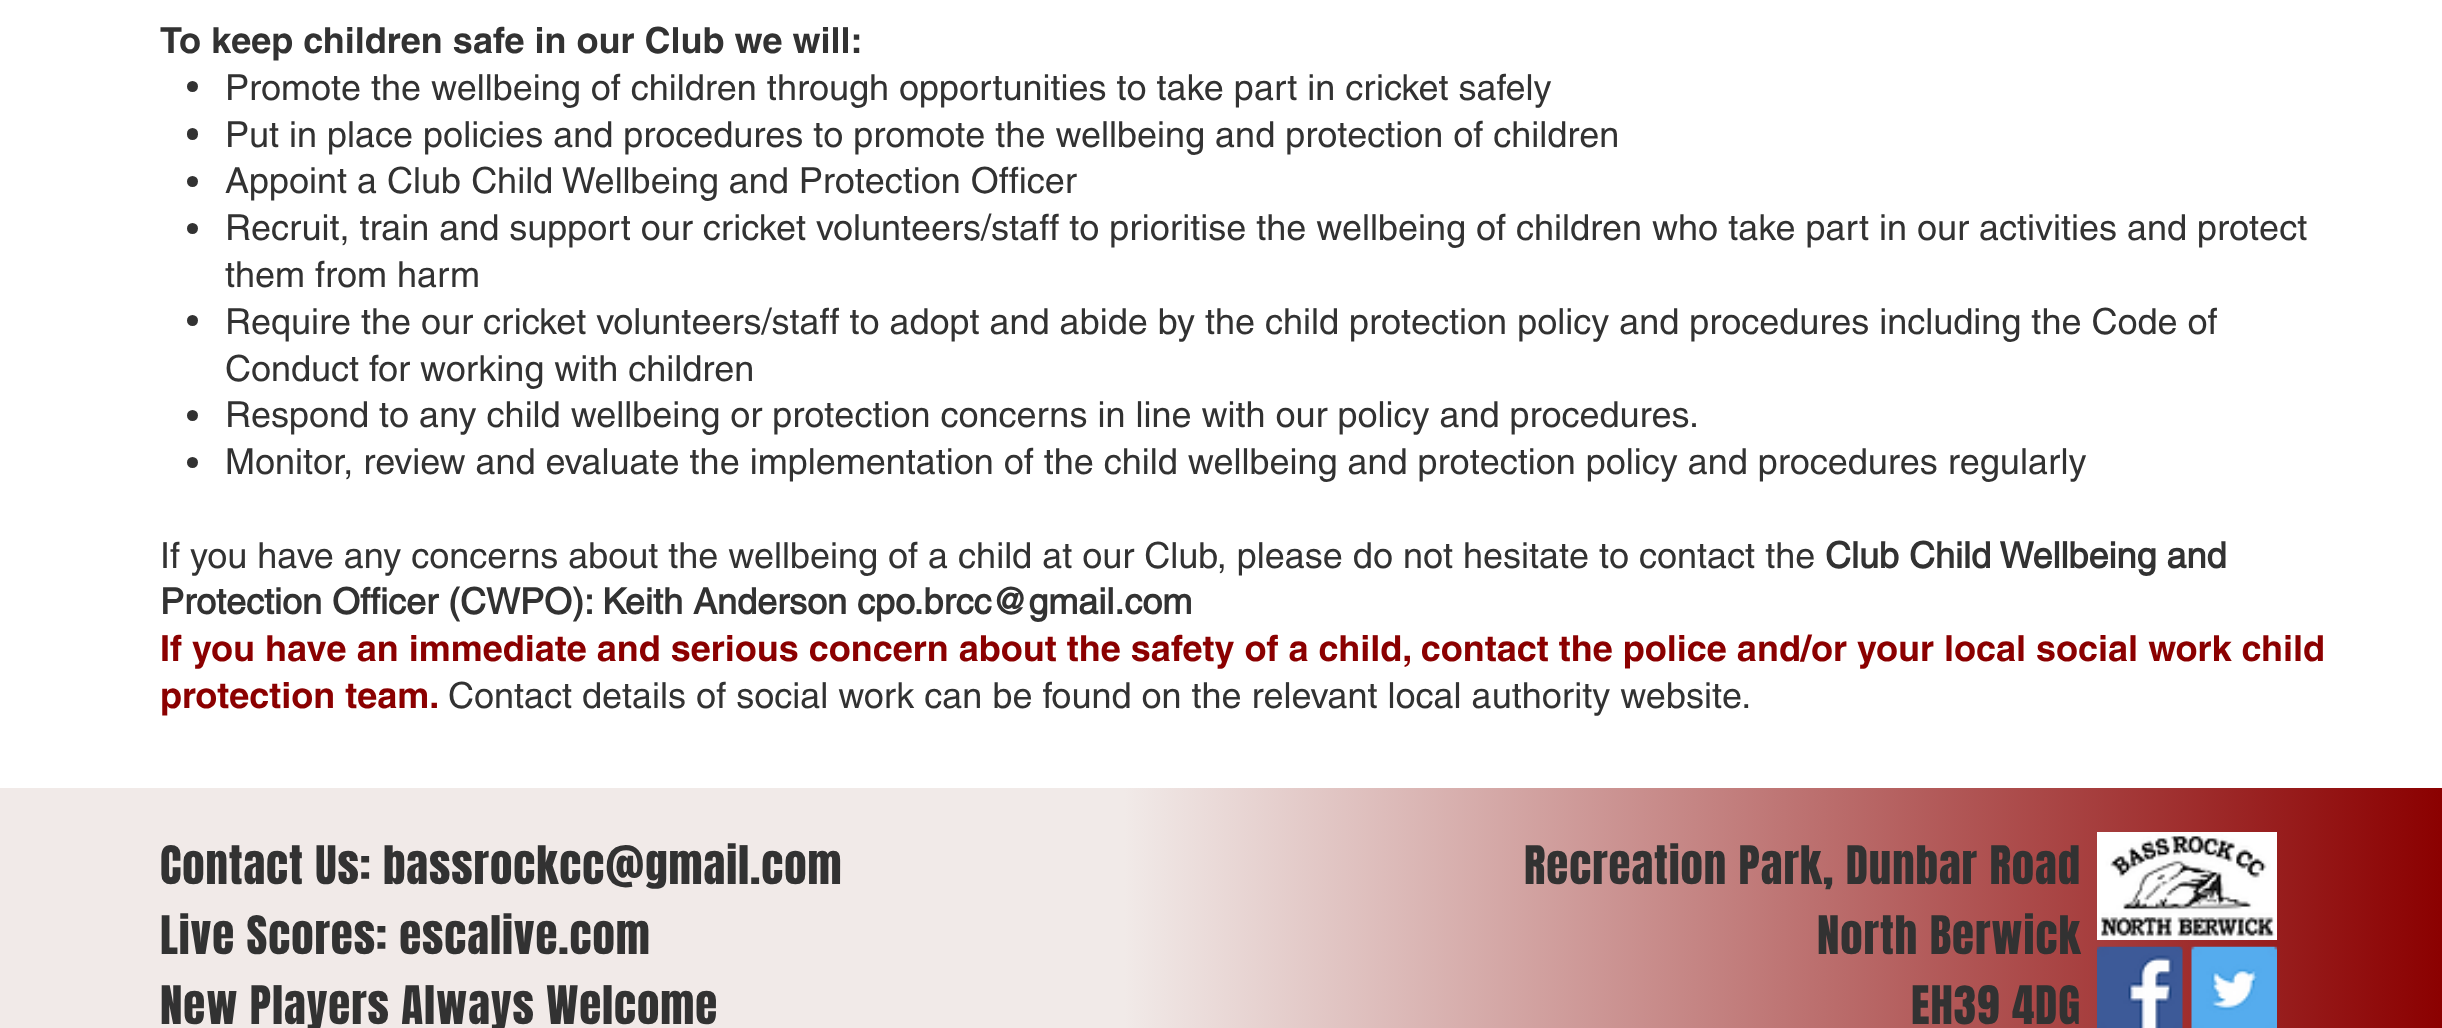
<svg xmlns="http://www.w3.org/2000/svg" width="2442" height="1028">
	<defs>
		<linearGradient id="g1" gradientUnits="userSpaceOnUse" x1="0" y1="945" x2="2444" y2="945"><stop offset="0.46" stop-color="#F1EAE8" /><stop offset="1" stop-color="#8B0000" /></linearGradient>
	</defs>
	<rect width="100%" height="100%" fill="#FFFFFF" />
	<text x="160" y="53" font-family="helvetica" font-size="36" font-weight="700" fill="#323232">To keep children safe in our Club we will:</text>
	<circle cx="192.5" cy="86.5" r="5.5" fill="#323232" />
	<text x="225" y="100" font-family="helvetica" font-size="36" fill="#323232">Promote the wellbeing of children through opportunities to take part in cricket safely</text>
	<rect x="187" y="128" width="11" height="12" rx="5.5" fill="#323232" />
	<text x="225" y="147" font-family="helvetica" font-size="36" fill="#323232">Put in place policies and procedures to promote the wellbeing and protection of children</text>
	<circle cx="192.5" cy="181.5" r="5.5" fill="#323232" />
	<text x="225" y="193" font-family="helvetica" font-size="36" fill="#323232">Appoint a Club Child Wellbeing and Protection Officer</text>
	<circle cx="192.5" cy="228.5" r="5.5" fill="#323232" />
	<g font-family="helvetica" font-size="36" fill="#323232">
		<text x="225" y="240">Recruit, train and support our cricket volunteers/staff to prioritise the wellbeing of children who take part in our activities and protect</text>
		<text x="225" y="287">them from harm</text>
	</g>
	<circle cx="192.5" cy="320.5" r="5.5" fill="#323232" />
	<g font-family="helvetica" font-size="36" fill="#323232">
		<text x="225" y="334">Require the our cricket volunteers/staff to adopt and abide by the child protection policy and procedures including the Code of</text>
		<text x="225" y="381">Conduct for working with children</text>
	</g>
	<circle cx="192.5" cy="415.5" r="5.5" fill="#323232" />
	<text x="225" y="427" font-family="helvetica" font-size="36" fill="#323232">Respond to any child wellbeing or protection concerns in line with our policy and procedures.</text>
	<circle cx="192.5" cy="462.5" r="5.5" fill="#323232" />
	<g font-family="helvetica" font-size="36" fill="#323232">
		<text x="225" y="474">Monitor, review and evaluate the implementation of the child wellbeing and protection policy and procedures regularly</text>
		<text x="160" y="568">If you have any concerns about the wellbeing of a child at our Club, please do not hesitate to contact the</text>
	</g>
	<g font-family="'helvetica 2'" font-size="36" font-weight="700" fill="#323232">
		<text x="1825" y="568">Club Child Wellbeing and</text>
		<text x="160" y="614">Protection Officer (CWPO): Keith Anderson cpo.brcc@gmail.com</text>
	</g>
	<g font-family="helvetica" font-size="36" font-weight="700" fill="#8B0000">
		<text x="160" y="661">If you have an immediate and serious concern about the safety of a child, contact the police and/or your local social work child</text>
		<text x="160" y="708">protection team.</text>
	</g>
	<text x="448" y="708" font-family="helvetica" font-size="36" fill="#323232">Contact details of social work can be found on the relevant local authority website.</text>
	<rect x="0" y="788" width="2442" height="240" fill="url(#g1)" />
	<g font-family="Anton" font-size="45" letter-spacing="0.9" fill="#323232">
		<text x="160" y="884">Contact Us: bassrockcc@gmail.com</text>
		<text x="160" y="954">Live Scores: escalive.com</text>
		<text x="160" y="1024">New Players Always Welcome</text>
		<text x="1524" y="884">Recreation Park, Dunbar Road</text>
		<text x="1817" y="954">North Berwick</text>
		<text x="1911" y="1024">EH39 4DG</text>
	</g>
	<image x="2097" y="832" width="180" height="108" href="assets/img1.png" />
	<image x="2097" y="946" width="86" height="82" href="assets/img2.png" />
	<image x="2191" y="946" width="86" height="82" href="assets/img3.png" />
</svg>
